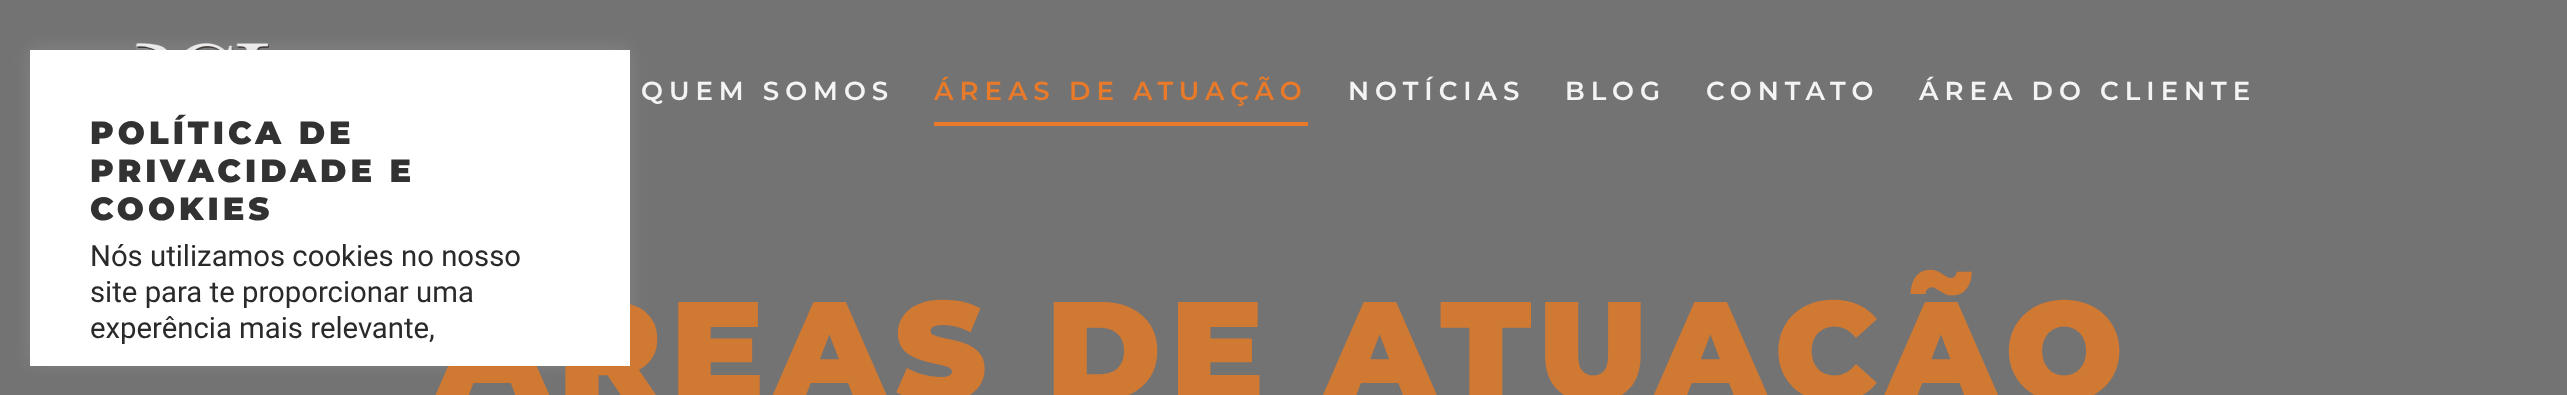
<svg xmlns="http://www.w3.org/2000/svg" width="2567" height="395">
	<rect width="100%" height="100%" fill="#737373" />
	<image x="135" y="43" width="135" height="7" href="assets/img1.png" />
	<rect x="30" y="48" width="600" height="316" fill="#ACABAB" fill-opacity="0.3" filter="blur(10px)" />
	<text x="436" y="400" font-family="Montserrat" font-size="140" font-weight="900" letter-spacing="8.6" fill="#D07933">ÁREAS DE ATUAÇÃO</text>
	<rect x="30" y="50" width="600" height="316" fill="#FFFFFF" />
	<g font-family="Montserrat" font-size="32" font-weight="900" letter-spacing="4" fill="#323232">
		<text x="90" y="144">POLÍTICA DE</text>
		<text x="90" y="182">PRIVACIDADE E</text>
		<text x="90" y="220">COOKIES</text>
	</g>
	<g font-family="Roboto" font-size="29.3" fill="#2A2A2A">
		<text x="90" y="266">Nós utilizamos cookies no nosso</text>
		<text x="90" y="302">site para te proporcionar uma</text>
		<text x="90" y="338">experência mais relevante,</text>
	</g>
	<text x="641" y="100" font-family="Montserrat" font-size="26" font-weight="600" letter-spacing="6" fill="#F4F4F4">QUEM SOMOS</text>
	<text x="934" y="100" font-family="Montserrat" font-size="26" font-weight="600" letter-spacing="6" fill="#E97A29">ÁREAS DE ATUAÇÃO</text>
	<rect x="934" y="122" width="374" height="4" fill="#E97A29" />
	<g font-family="Montserrat" font-size="26" font-weight="600" letter-spacing="6" fill="#F4F4F4">
		<text x="1348" y="100">NOTÍCIAS</text>
		<text x="1565" y="100">BLOG</text>
		<text x="1706" y="100">CONTATO</text>
		<text x="1919" y="100">ÁREA DO CLIENTE</text>
	</g>
</svg>
